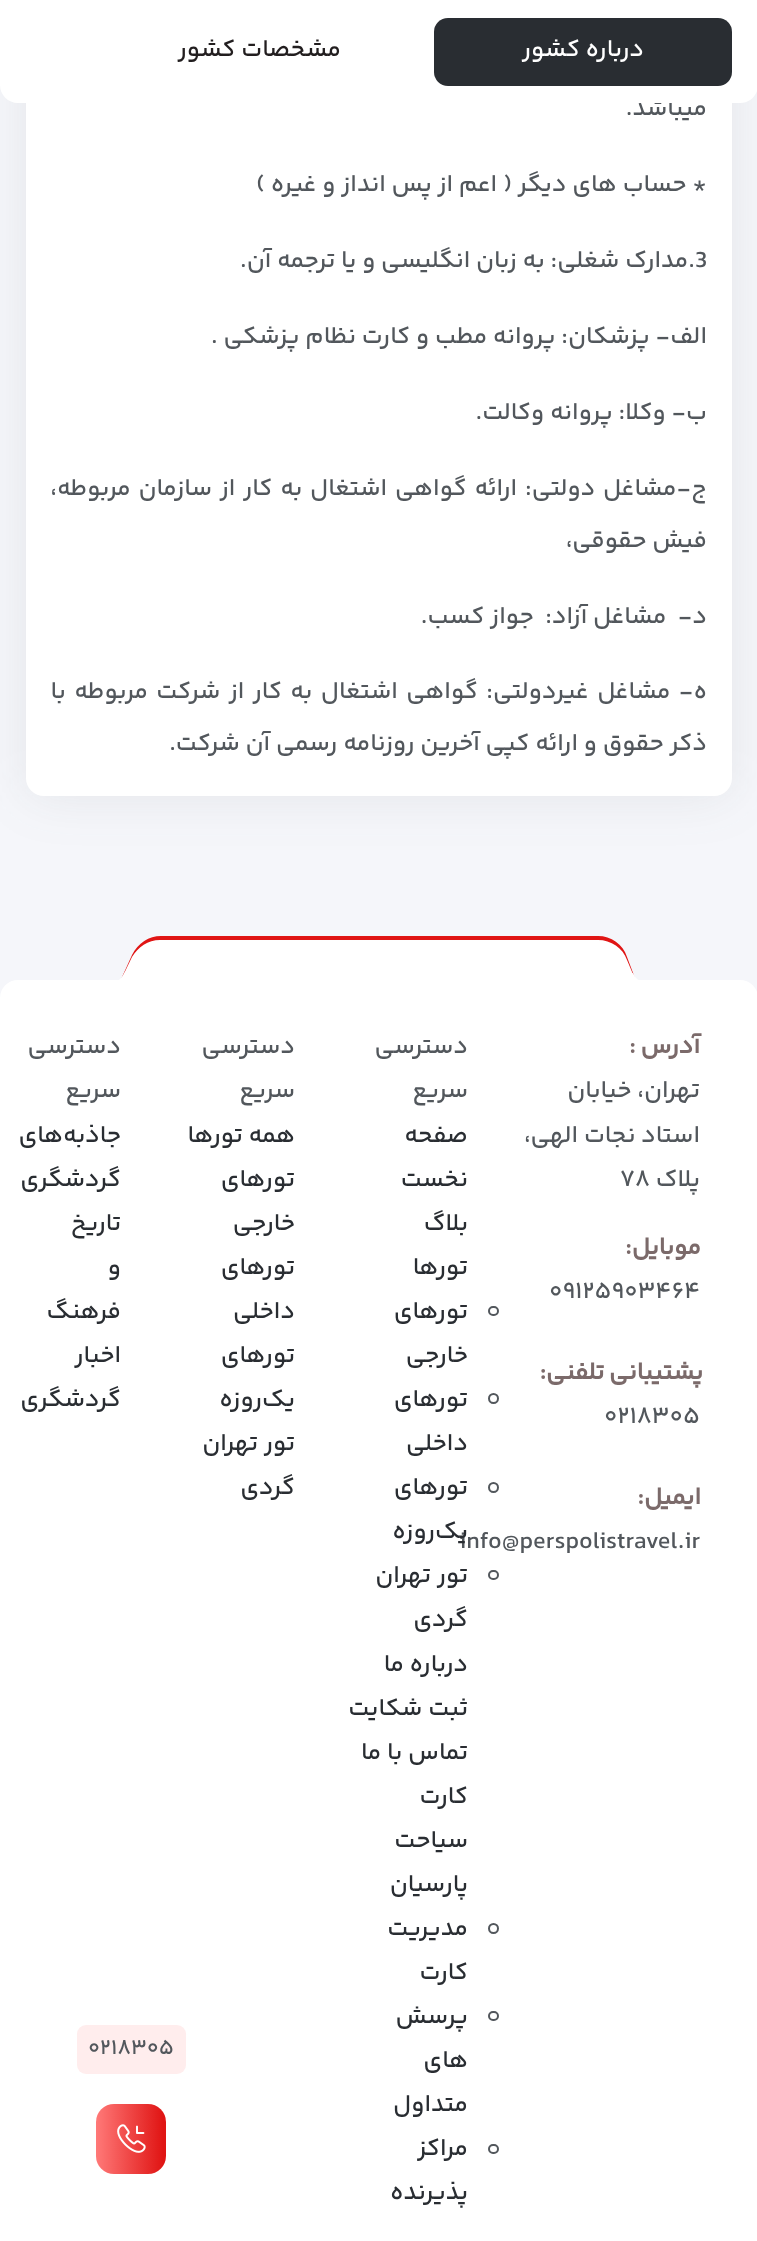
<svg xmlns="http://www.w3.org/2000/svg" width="757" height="2241">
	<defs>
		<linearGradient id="g1" gradientUnits="userSpaceOnUse" x1="166" y1="2139" x2="96" y2="2139"><stop offset="0.04" stop-color="#E01514" /><stop offset="1" stop-color="#FF7978" /></linearGradient>
	</defs>
	<rect width="100%" height="100%" fill="#F5F6FA" />
	<rect x="26" y="-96" width="706" height="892" rx="18" fill="#52575C" fill-opacity="0.1" filter="blur(26px)" />
	<rect x="26" y="-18" width="706" height="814" rx="18" fill="#FFFFFF" />
	<text x="707" y="115" font-family="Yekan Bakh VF" font-size="24.5" direction="rtl" fill="#52575C">میباشد.</text>
	<path d="M0 0H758V85C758 95 750 103 740 103H18C8 103 0 95 0 85Z" fill="#FFFFFF" />
	<rect x="434" y="18" width="298" height="68" rx="14" fill="#292D32" />
	<text x="644" y="56" font-family="Yekan Bakh VF" font-size="24.5" direction="rtl" fill="#FFFFFF">درباره کشور</text>
	<text x="341" y="56" font-family="Yekan Bakh VF" font-size="24.5" direction="rtl" fill="#221E1F">مشخصات کشور</text>
	<text x="707" y="191" font-family="Yekan Bakh VF" font-size="24.5" direction="rtl" fill="#52575C">* حساب های دیگر ( اعم از پس انداز و غیره )</text>
	<text x="695" y="267" font-family="Yekan Bakh VF" font-size="24.5" fill="#52575C">3</text>
	<g font-family="Yekan Bakh VF" font-size="24.5" direction="rtl" fill="#52575C">
		<text x="695" y="267">.مدارک شغلی: به زبان انگلیسی و یا ترجمه آن.</text>
		<text x="707" y="343">الف- پزشکان: پروانه مطب و کارت نظام پزشکی .</text>
		<text x="707" y="419">ب- وکلا: پروانه وکالت.</text>
		<text x="707" y="495" word-spacing="2">ج-مشاغل دولتی: ارائه گواهی اشتغال به کار از سازمان مربوطه،</text>
		<text x="707" y="547">فیش حقوقی،</text>
		<text x="707" y="623" xml:space="preserve">د-  مشاغل آزاد:  جواز کسب.</text>
		<text x="707" y="698" word-spacing="2.6">ه- مشاغل غیردولتی: گواهی اشتغال به کار از شرکت مربوطه با</text>
		<text x="707" y="750">ذکر حقوق و ارائه کپی آخرین روزنامه رسمی آن شرکت.</text>
	</g>
	<path d="M132 955C138 943 149 936 161 936H598C611 936 623 944 627 957L638 986H118Z" fill="#E01514" />
	<path d="M132 957C138 947 148 940 160 940H598C611 940 623 948 627 960L638 986H118Z" fill="#FFFFFF" />
	<path d="M102 986C113 985 120 982 125 972L185 986H79Z" fill="#FFFFFF" />
	<path d="M678 986C653 986 638 985 633 973L571 986Z" fill="#FFFFFF" />
	<rect x="0" y="980" width="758" height="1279" rx="18" fill="#FFFFFF" />
	<text x="700" y="1053" word-spacing="-1" font-family="Yekan Bakh VF" font-size="24.5" font-weight="700" direction="rtl" fill="#7B6A6A">آدرس :</text>
	<g font-family="Yekan Bakh VF" font-size="24.5" direction="rtl" fill="#52575C">
		<text x="700" y="1097">تهران، خیابان</text>
		<text x="700" y="1142">استاد نجات الهی،</text>
		<text x="700" y="1186">پلاک</text>
	</g>
	<text x="620" y="1186" font-family="Yekan Bakh VF" font-size="24.5" fill="#52575C">۷۸</text>
	<text x="701" y="1254" font-family="Yekan Bakh VF" font-size="24.5" font-weight="700" direction="rtl" fill="#7B6A6A">موبایل:</text>
	<text x="549" y="1298" font-family="Yekan Bakh VF" font-size="24.5" fill="#52575C">۰۹۱۲۵۹۰۳۴۶۴</text>
	<text x="703" y="1379" word-spacing="-1" font-family="Yekan Bakh VF" font-size="24.5" font-weight="700" direction="rtl" fill="#7B6A6A">پشتیبانی تلفنی:</text>
	<text x="604" y="1423" font-family="Yekan Bakh VF" font-size="24.5" fill="#52575C">۰۲۱۸۳۰۵</text>
	<text x="701" y="1504" font-family="Yekan Bakh VF" font-size="24.5" font-weight="700" direction="rtl" fill="#7B6A6A">ایمیل:</text>
	<text x="459" y="1548" font-family="Yekan Bakh VF" font-size="24.5" fill="#52575C">info@perspolistravel.ir</text>
	<g font-family="Yekan Bakh VF" font-size="24.5" direction="rtl" fill="#52575C">
		<text x="468" y="1053">دسترسی</text>
		<text x="468" y="1097">سریع</text>
	</g>
	<g font-family="Yekan Bakh VF" font-size="24.5" direction="rtl" fill="#292D32">
		<text x="468" y="1142">صفحه</text>
		<text x="468" y="1186">نخست</text>
		<text x="468" y="1230">بلاگ</text>
		<text x="468" y="1274">تورها</text>
	</g>
	<rect x="489" y="1307" width="9" height="8" rx="4" fill="none" stroke="#52575C" stroke-width="2" />
	<g font-family="Yekan Bakh VF" font-size="24.5" direction="rtl" fill="#292D32">
		<text x="468" y="1318">تورهای</text>
		<text x="468" y="1362">خارجی</text>
	</g>
	<circle cx="493.5" cy="1398.5" r="4.5" fill="none" stroke="#52575C" stroke-width="2" />
	<g font-family="Yekan Bakh VF" font-size="24.5" direction="rtl" fill="#292D32">
		<text x="468" y="1406">تورهای</text>
		<text x="468" y="1450">داخلی</text>
	</g>
	<circle cx="493.5" cy="1487.5" r="4.5" fill="none" stroke="#52575C" stroke-width="2" />
	<g font-family="Yekan Bakh VF" font-size="24.5" direction="rtl" fill="#292D32">
		<text x="468" y="1494">تورهای</text>
		<text x="468" y="1538">یک‌روزه</text>
	</g>
	<rect x="489" y="1571" width="9" height="8" rx="4" fill="none" stroke="#52575C" stroke-width="2" />
	<g font-family="Yekan Bakh VF" font-size="24.5" direction="rtl" fill="#292D32">
		<text x="468" y="1582">تور تهران</text>
		<text x="468" y="1626">گردی</text>
		<text x="468" y="1671">درباره ما</text>
		<text x="468" y="1715">ثبت شکایت</text>
		<text x="468" y="1759">تماس با ما</text>
		<text x="468" y="1803">کارت</text>
		<text x="468" y="1847">سیاحت</text>
		<text x="468" y="1891">پارسیان</text>
	</g>
	<circle cx="493.5" cy="1928.5" r="4.5" fill="none" stroke="#52575C" stroke-width="2" />
	<g font-family="Yekan Bakh VF" font-size="24.5" direction="rtl" fill="#292D32">
		<text x="468" y="1935">مدیریت</text>
		<text x="468" y="1979">کارت</text>
	</g>
	<rect x="489" y="2012" width="9" height="8" rx="4" fill="none" stroke="#52575C" stroke-width="2" />
	<g font-family="Yekan Bakh VF" font-size="24.5" direction="rtl" fill="#292D32">
		<text x="468" y="2023">پرسش</text>
		<text x="468" y="2067">های</text>
		<text x="468" y="2111">متداول</text>
	</g>
	<rect x="489" y="2145" width="9" height="8" rx="4" fill="none" stroke="#52575C" stroke-width="2" />
	<g font-family="Yekan Bakh VF" font-size="24.5" direction="rtl" fill="#292D32">
		<text x="468" y="2155">مراکز</text>
		<text x="468" y="2199">پذیرنده</text>
	</g>
	<g font-family="Yekan Bakh VF" font-size="24.5" direction="rtl" fill="#52575C">
		<text x="295" y="1053">دسترسی</text>
		<text x="295" y="1097">سریع</text>
	</g>
	<g font-family="Yekan Bakh VF" font-size="24.5" direction="rtl" fill="#292D32">
		<text x="295" y="1142">همه تورها</text>
		<text x="295" y="1186">تورهای</text>
		<text x="295" y="1230">خارجی</text>
		<text x="295" y="1274">تورهای</text>
		<text x="295" y="1318">داخلی</text>
		<text x="295" y="1362">تورهای</text>
		<text x="295" y="1406">یک‌روزه</text>
		<text x="295" y="1450">تور تهران</text>
		<text x="295" y="1494">گردی</text>
	</g>
	<g font-family="Yekan Bakh VF" font-size="24.5" direction="rtl" fill="#52575C">
		<text x="121" y="1053">دسترسی</text>
		<text x="121" y="1097">سریع</text>
	</g>
	<g font-family="Yekan Bakh VF" font-size="24.5" direction="rtl" fill="#292D32">
		<text x="121" y="1142">جاذبه‌های</text>
		<text x="121" y="1186">گردشگری</text>
		<text x="121" y="1230">تاریخ</text>
		<text x="121" y="1274">و</text>
		<text x="121" y="1318">فرهنگ</text>
		<text x="121" y="1362">اخبار</text>
		<text x="121" y="1406">گردشگری</text>
	</g>
	<rect x="77" y="2025" width="109" height="49" rx="9" fill="#FFEDED" />
	<text x="88" y="2054" font-family="Yekan Bakh VF" font-size="22" fill="#52575C">۰۲۱۸۳۰۵</text>
	<rect x="96" y="2104" width="70" height="70" rx="18" fill="url(#g1)" />
	<image x="117" y="2124" width="29" height="29" href="assets/img1.png" />
</svg>
